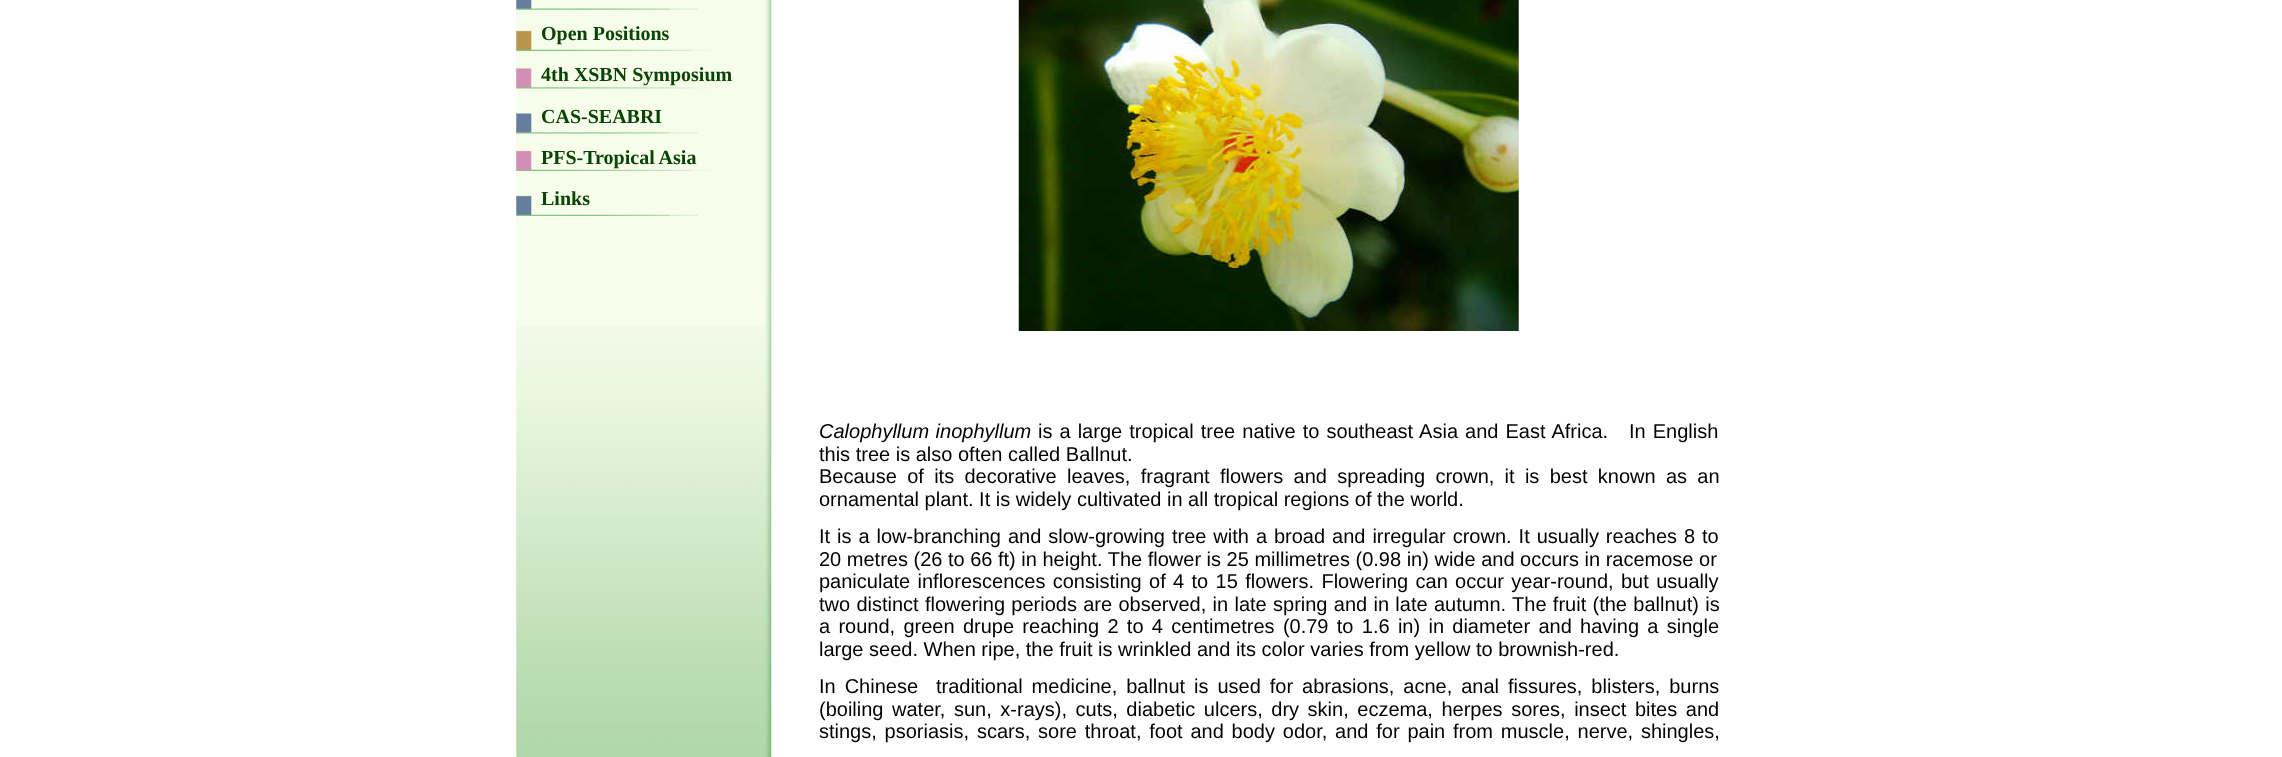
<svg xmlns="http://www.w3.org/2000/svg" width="2282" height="757">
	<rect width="100%" height="100%" fill="#FFFFFF" />
	<rect x="516" y="0" width="249" height="757" fill="#F6FDEB" />
	<image x="516" y="326" width="249" height="431" href="assets/img1.png" />
	<image x="516" y="0" width="182" height="10" href="assets/img2.png" />
	<image x="516" y="30" width="194" height="21" href="assets/img3.png" />
	<text x="541" y="40" font-family="Liberation Serif" font-size="20" font-weight="700" fill="#094404">Open Positions</text>
	<image x="516" y="68" width="194" height="21" href="assets/img4.png" />
	<text x="541" y="81" font-family="Liberation Serif" font-size="20" font-weight="700" fill="#094404">4th XSBN Symposium</text>
	<image x="516" y="113" width="182" height="21" href="assets/img5.png" />
	<text x="541" y="123" font-family="Liberation Serif" font-size="20" font-weight="700" fill="#094404">CAS-SEABRI</text>
	<image x="516" y="150" width="194" height="21" href="assets/img6.png" />
	<text x="541" y="164" font-family="Liberation Serif" font-size="20" font-weight="700" fill="#094404">PFS-Tropical Asia</text>
	<image x="516" y="195" width="182" height="21" href="assets/img7.png" />
	<text x="541" y="205" font-family="Liberation Serif" font-size="20" font-weight="700" fill="#094404">Links</text>
	<image x="765" y="0" width="7" height="757" href="assets/img8.png" />
	<image x="1018" y="0" width="501" height="331" href="assets/img9.png" />
	<text x="819" y="438" word-spacing="1" font-family="Liberation Sans" font-size="20" font-style="italic" fill="#000000">Calophyllum inophyllum</text>
	<g font-family="Liberation Sans" font-size="20" fill="#000000">
		<text x="1038" y="438" word-spacing="1.5">is a large tropical tree native to southeast Asia and East Africa.</text>
		<text x="1629" y="438" word-spacing="1.5">In English</text>
		<text x="819" y="461">this tree is also often called Ballnut.</text>
		<text x="819" y="483" word-spacing="4.75">Because of its decorative leaves, fragrant flowers and spreading crown, it is best known as an</text>
		<text x="819" y="506">ornamental plant. It is widely cultivated in all tropical regions of the world.</text>
		<text x="819" y="543">It</text>
		<text x="837" y="543" word-spacing="1.4">is a low-branching and slow-growing tree with a broad and irregular crown. It usually reaches 8 to</text>
		<text x="819" y="566">20 metres (26 to 66 ft) in height. The flower is 25 millimetres (0.98 in) wide and occurs in racemose or</text>
		<text x="819" y="588" word-spacing="1.8">paniculate inflorescences consisting of 4 to 15 flowers. Flowering can occur year-round, but usually</text>
		<text x="819" y="611" word-spacing="0.75">two distinct flowering periods are observed, in late spring and in late autumn. The fruit (the ballnut) is</text>
		<text x="819" y="633" word-spacing="2.75">a round, green drupe reaching 2 to 4 centimetres (0.79 to 1.6 in) in diameter and having a single</text>
		<text x="819" y="656">large seed. When ripe, the fruit is wrinkled and its color varies from yellow to brownish-red.</text>
		<text x="819" y="693" word-spacing="3.4" xml:space="preserve">In Chinese  traditional medicine, ballnut is used for abrasions, acne, anal fissures, blisters, burns</text>
		<text x="819" y="716" word-spacing="3">(boiling water, sun, x-rays), cuts, diabetic ulcers, dry skin, eczema, herpes sores, insect bites and</text>
		<text x="819" y="738" word-spacing="2.25">stings, psoriasis, scars, sore throat, foot and body odor, and for pain from muscle, nerve, shingles,</text>
	</g>
</svg>
